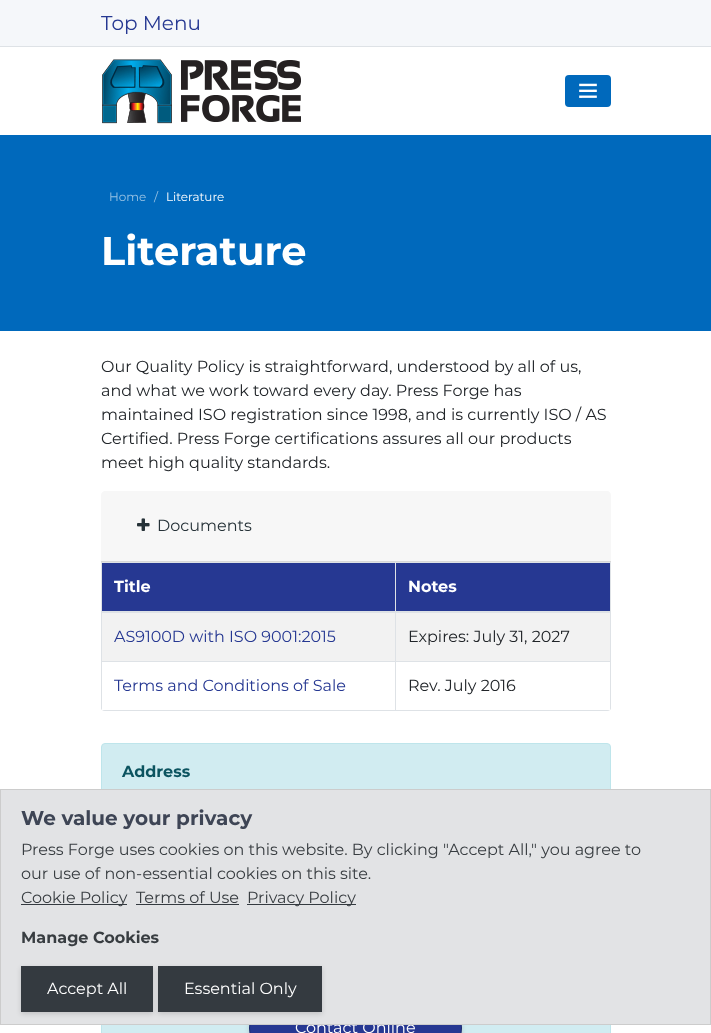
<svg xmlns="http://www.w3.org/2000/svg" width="711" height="1033">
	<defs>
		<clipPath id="clip1"><rect x="101" y="491" width="510" height="220" rx="4" /></clipPath>
	</defs>
	<rect width="100%" height="100%" fill="#FFFFFF" />
	<rect x="0" y="0" width="711" height="46" fill="#F5F7FA" />
	<rect x="0" y="46" width="711" height="1" fill="#DEE2E6" />
	<text x="101" y="30" font-family="Montserrat" font-size="20" fill="#263892">Top Menu</text>
	<image x="102" y="59" width="199" height="65" href="assets/img1.png" />
	<rect x="565" y="75" width="46" height="32" rx="4" fill="#0069BC" />
	<image x="579" y="83" width="18" height="15" href="assets/img2.png" />
	<rect x="0" y="135" width="711" height="196" fill="#0069BC" />
	<g font-family="Montserrat" font-size="12" fill="#99C3E4">
		<text x="109" y="201">Home</text>
		<text x="154" y="201">/</text>
	</g>
	<text x="166" y="201" font-family="Montserrat" font-size="12" fill="#FFFFFF">Literature</text>
	<text x="101" y="265" font-family="Montserrat" font-size="40" font-weight="700" fill="#FFFFFF">Literature</text>
	<g font-family="Montserrat" font-size="16" fill="#212529">
		<text x="101" y="372">Our Quality Policy is straightforward, understood by all of us,</text>
		<text x="101" y="396">and what we work toward every day. Press Forge has</text>
		<text x="101" y="420">maintained ISO registration since 1998, and is currently ISO / AS</text>
		<text x="101" y="444">Certified. Press Forge certifications assures all our products</text>
		<text x="101" y="468">meet high quality standards.</text>
	</g>
	<path d="M105 491H607C609 491 611 493 611 495V562H101V495C101 493 103 491 105 491Z" fill="#F7F7F7" />
	<rect x="101" y="561" width="510" height="1" fill="#D8D8D8" />
	<image x="137" y="518" width="13" height="13" href="assets/img3.png" />
	<text x="157" y="531" font-family="Montserrat" font-size="16" fill="#263238">Documents</text>
	<rect x="101" y="562" width="510" height="1" fill="#DEE2E6" />
	<g clip-path="url(#clip1)">
		<rect x="610" y="562" width="1" height="149" fill="#DEE2E6" />
		<rect x="101" y="562" width="1" height="149" fill="#DEE2E6" />
	</g>
	<rect x="102" y="563" width="508" height="48" fill="#263892" />
	<text x="114" y="592" font-family="Montserrat" font-size="16" font-weight="700" fill="#FFFFFF">Title</text>
	<rect x="102" y="613" width="508" height="48" fill="#F2F2F2" />
	<rect x="395" y="661" width="216" height="1" fill="#DEE2E6" />
	<g clip-path="url(#clip1)">
		<rect x="610" y="661" width="1" height="50" fill="#DEE2E6" />
		<rect x="395" y="710" width="216" height="1" fill="#DEE2E6" />
	</g>
	<rect x="395" y="661" width="1" height="50" fill="#DEE2E6" />
	<rect x="101" y="661" width="295" height="1" fill="#DEE2E6" />
	<rect x="395" y="562" width="1" height="100" fill="#DEE2E6" />
	<rect x="101" y="611" width="510" height="2" fill="#DEE2E6" />
	<text x="408" y="592" font-family="Montserrat" font-size="16" font-weight="700" fill="#FFFFFF">Notes</text>
	<text x="114" y="642" font-family="Montserrat" font-size="16" fill="#263892">AS9100D with ISO 9001:2015</text>
	<text x="408" y="642" font-family="Montserrat" font-size="16" fill="#212529">Expires: July 31, 2027</text>
	<g clip-path="url(#clip1)">
		<rect x="101" y="710" width="295" height="1" fill="#DEE2E6" />
		<rect x="101" y="661" width="1" height="50" fill="#DEE2E6" />
	</g>
	<text x="114" y="691" font-family="Montserrat" font-size="16" fill="#263892">Terms and Conditions of Sale</text>
	<text x="408" y="691" font-family="Montserrat" font-size="16" fill="#212529">Rev. July 2016</text>
	<rect x="101.5" y="743.5" width="509" height="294" rx="3.5" fill="#D1ECF1" stroke="#BEE5EB" />
	<text x="122" y="777" font-family="Montserrat" font-size="16" font-weight="700" fill="#0C5460">Address</text>
	<rect x="249" y="1002" width="213" height="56" rx="28" fill="#000000" fill-opacity="0.14" filter="blur(2.5px)" />
	<rect x="249.5" y="1000.5" width="212" height="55" rx="27.5" fill="#263892" stroke="#1D2A6E" />
	<text x="295" y="1033" font-family="Montserrat" font-size="16" fill="#FFFFFF">Contact Online</text>
	<rect x="0.5" y="789.5" width="710" height="235" fill="#E2E3E5" stroke="#CCCCCC" />
	<text x="21" y="825" font-family="Montserrat" font-size="20" font-weight="700" fill="#3E4555">We value your privacy</text>
	<g font-family="Montserrat" font-size="16" fill="#383D41">
		<text x="21" y="855">Press Forge uses cookies on this website. By clicking "Accept All," you agree to</text>
		<text x="21" y="879">our use of non-essential cookies on this site.</text>
	</g>
	<rect x="21" y="904" width="106" height="1" fill="#343A40" />
	<g font-family="Montserrat" font-size="16" fill="#383D41">
		<text x="21" y="903">Cookie Policy</text>
		<text x="136" y="903">Terms of Use</text>
	</g>
	<rect x="136" y="904" width="103" height="1" fill="#343A40" />
	<rect x="247" y="904" width="109" height="1" fill="#343A40" />
	<text x="247" y="903" font-family="Montserrat" font-size="16" fill="#383D41">Privacy Policy</text>
	<text x="21" y="943" font-family="Montserrat" font-size="16" font-weight="700" fill="#383D41">Manage Cookies</text>
	<rect x="21" y="968" width="132" height="46" fill="#000000" fill-opacity="0.14" filter="blur(2.5px)" />
	<rect x="21" y="966" width="132" height="46" fill="#343A40" />
	<text x="47" y="994" font-family="Montserrat" font-size="16" fill="#FFFFFF">Accept All</text>
	<rect x="158" y="968" width="164" height="46" fill="#000000" fill-opacity="0.14" filter="blur(2.5px)" />
	<rect x="158" y="966" width="164" height="46" fill="#343A40" />
	<text x="184" y="994" font-family="Montserrat" font-size="16" fill="#FFFFFF">Essential Only</text>
</svg>
